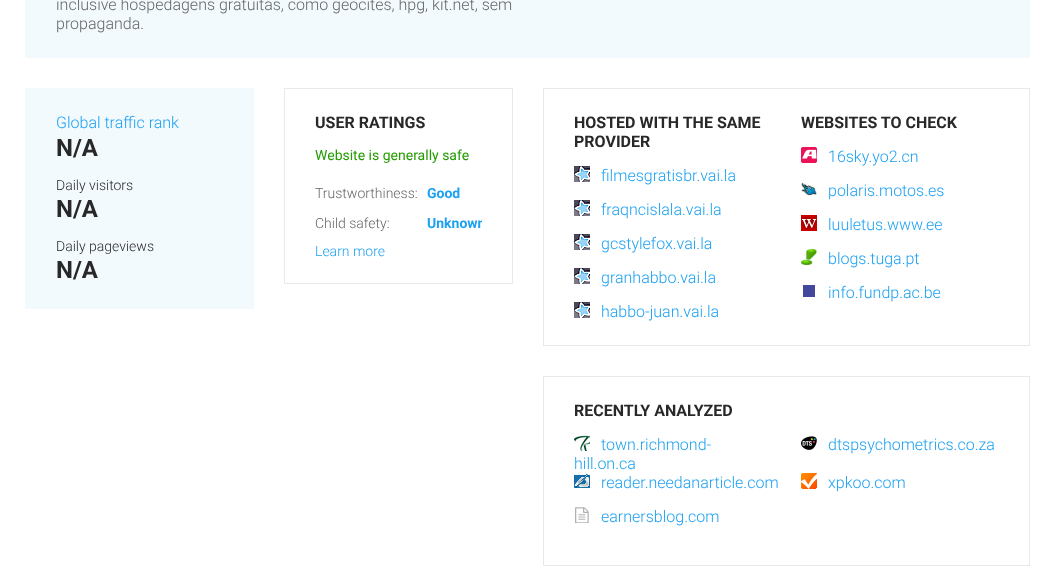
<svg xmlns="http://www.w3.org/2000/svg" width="1055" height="585">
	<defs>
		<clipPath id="clip1"><rect x="315" y="113" width="167" height="146" /></clipPath>
	</defs>
	<rect width="100%" height="100%" fill="#FFFFFF" />
	<rect x="25" y="0" width="1005" height="58" fill="#F3FAFE" />
	<g font-family="Roboto" font-size="16" font-weight="300" fill="#666666">
		<text x="56" y="10">inclusive hospedagens gratuitas, como geocites, hpg, kit.net, sem</text>
		<text x="56" y="29">propaganda.</text>
	</g>
	<rect x="25" y="88" width="229" height="221" fill="#F3FAFE" />
	<text x="56" y="128" font-family="Roboto" font-size="16" font-weight="300" fill="#1DA1F2">Global traffic rank</text>
	<text x="56" y="156" font-family="Roboto" font-size="24" font-weight="700" fill="#282828">N/A</text>
	<text x="56" y="190" font-family="Roboto" font-size="14" font-weight="300" fill="#282828">Daily visitors</text>
	<text x="56" y="217" font-family="Roboto" font-size="24" font-weight="700" fill="#282828">N/A</text>
	<text x="56" y="251" font-family="Roboto" font-size="14" font-weight="300" fill="#282828">Daily pageviews</text>
	<text x="56" y="278" font-family="Roboto" font-size="24" font-weight="700" fill="#282828">N/A</text>
	<rect x="284.5" y="88.5" width="228" height="195" fill="none" stroke="#E9E9E9" />
	<text x="315" y="128" font-family="Roboto" font-size="16" font-weight="700" fill="#282828">USER RATINGS</text>
	<text x="315" y="160" font-family="Roboto" font-size="14" fill="#249B00">Website is generally safe</text>
	<text x="315" y="198" font-family="Roboto" font-size="14" font-weight="300" fill="#666666">Trustworthiness:</text>
	<text x="427" y="198" font-family="Roboto" font-size="14" font-weight="700" fill="#1DA1F2">Good</text>
	<text x="315" y="228" font-family="Roboto" font-size="14" font-weight="300" fill="#666666">Child safety:</text>
	<g clip-path="url(#clip1)">
		<text x="427" y="228" font-family="Roboto" font-size="14" font-weight="700" fill="#1DA1F2">Unknown</text>
	</g>
	<text x="315" y="256" font-family="Roboto" font-size="14" font-weight="300" fill="#1DA1F2">Learn more</text>
	<rect x="543.5" y="88.5" width="486" height="257" fill="none" stroke="#E9E9E9" />
	<g font-family="Roboto" font-size="16" font-weight="700" fill="#282828">
		<text x="574" y="128">HOSTED WITH THE SAME</text>
		<text x="574" y="147">PROVIDER</text>
	</g>
	<image x="574" y="166" width="16" height="16" href="assets/img1.png" />
	<text x="601" y="181" font-family="Roboto" font-size="16" font-weight="300" fill="#1DA1F2">filmesgratisbr.vai.la</text>
	<image x="574" y="200" width="16" height="16" href="assets/img1.png" />
	<text x="601" y="215" font-family="Roboto" font-size="16" font-weight="300" fill="#1DA1F2">fraqncislala.vai.la</text>
	<image x="574" y="234" width="16" height="16" href="assets/img1.png" />
	<text x="601" y="249" font-family="Roboto" font-size="16" font-weight="300" fill="#1DA1F2">gcstylefox.vai.la</text>
	<image x="574" y="268" width="16" height="16" href="assets/img1.png" />
	<text x="601" y="283" font-family="Roboto" font-size="16" font-weight="300" fill="#1DA1F2">granhabbo.vai.la</text>
	<image x="574" y="302" width="16" height="16" href="assets/img1.png" />
	<text x="601" y="317" font-family="Roboto" font-size="16" font-weight="300" fill="#1DA1F2">habbo-juan.vai.la</text>
	<text x="801" y="128" font-family="Roboto" font-size="16" font-weight="700" fill="#282828">WEBSITES TO CHECK</text>
	<image x="801" y="147" width="16" height="16" href="assets/img2.png" />
	<text x="828" y="162" font-family="Roboto" font-size="16" font-weight="300" fill="#1DA1F2">16sky.yo2.cn</text>
	<image x="801" y="182" width="16" height="14" href="assets/img3.png" />
	<text x="828" y="196" font-family="Roboto" font-size="16" font-weight="300" fill="#1DA1F2">polaris.motos.es</text>
	<image x="801" y="215" width="16" height="16" href="assets/img4.png" />
	<text x="828" y="230" font-family="Roboto" font-size="16" font-weight="300" fill="#1DA1F2">luuletus.www.ee</text>
	<image x="801" y="249" width="16" height="16" href="assets/img5.png" />
	<text x="828" y="264" font-family="Roboto" font-size="16" font-weight="300" fill="#1DA1F2">blogs.tuga.pt</text>
	<rect x="803" y="285" width="12" height="12" fill="#43489C" />
	<text x="828" y="298" font-family="Roboto" font-size="16" font-weight="300" fill="#1DA1F2">info.fundp.ac.be</text>
	<rect x="543.5" y="376.5" width="486" height="189" fill="none" stroke="#E9E9E9" />
	<text x="574" y="416" font-family="Roboto" font-size="16" font-weight="700" fill="#282828">RECENTLY ANALYZED</text>
	<image x="574" y="435" width="16" height="16" href="assets/img6.png" />
	<g font-family="Roboto" font-size="16" font-weight="300" fill="#1DA1F2">
		<text x="601" y="450">town.richmond-</text>
		<text x="574" y="469">hill.on.ca</text>
	</g>
	<image x="801" y="436" width="16" height="14" href="assets/img7.png" />
	<text x="828" y="450" font-family="Roboto" font-size="16" font-weight="300" fill="#1DA1F2">dtspsychometrics.co.za</text>
	<image x="574" y="474" width="16" height="14" href="assets/img8.png" />
	<text x="601" y="488" font-family="Roboto" font-size="16" font-weight="300" fill="#1DA1F2">reader.needanarticle.com</text>
	<image x="801" y="473" width="16" height="16" href="assets/img9.png" />
	<text x="828" y="488" font-family="Roboto" font-size="16" font-weight="300" fill="#1DA1F2">xpkoo.com</text>
	<image x="575" y="507" width="14" height="16" href="assets/img10.png" />
	<text x="601" y="522" font-family="Roboto" font-size="16" font-weight="300" fill="#1DA1F2">earnersblog.com</text>
</svg>
